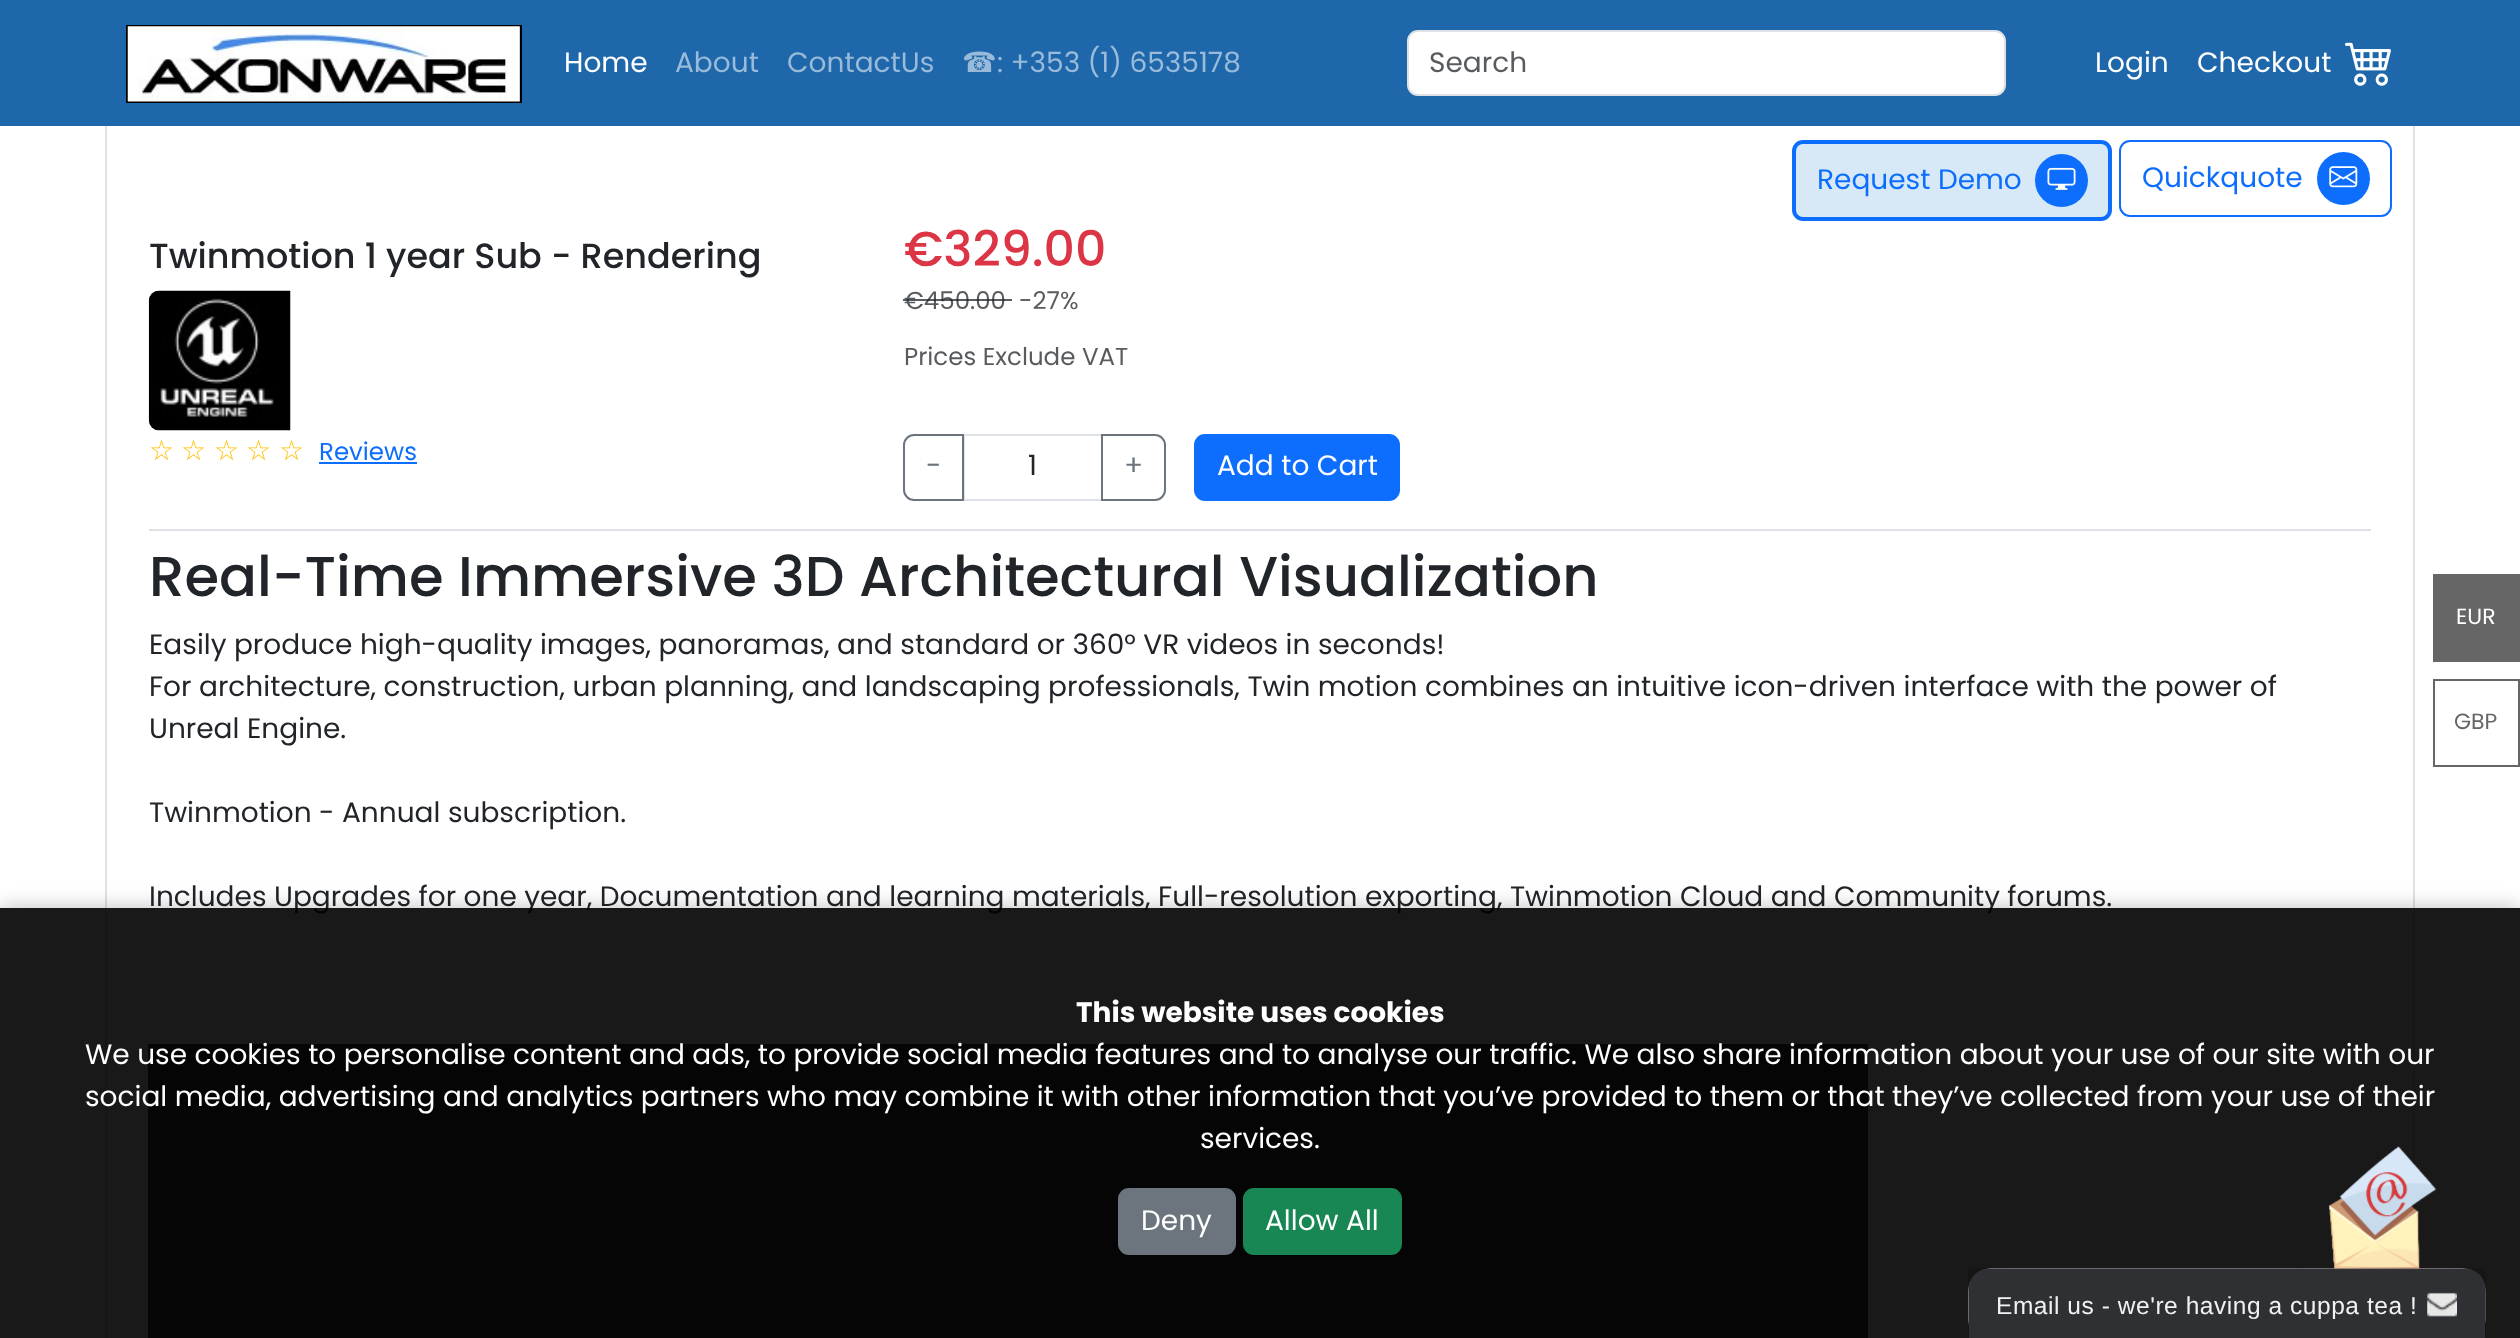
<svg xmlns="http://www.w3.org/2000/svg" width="2520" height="1338">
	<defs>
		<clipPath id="clip1"><path d="M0 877H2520V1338H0ZM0 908H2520V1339H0Z" clip-rule="evenodd" /></clipPath>
	</defs>
	<rect width="100%" height="100%" fill="#FFFFFF" />
	<rect x="0" y="0" width="2520" height="126" fill="#1D67AA" />
	<rect x="127" y="26" width="394" height="76" fill="none" stroke="#000000" stroke-width="2" />
	<image x="127" y="26" width="393" height="76" href="assets/img1.png" />
	<text x="564" y="72" font-family="Poppins" font-size="28" fill="#FFFFFF">Home</text>
	<g font-family="Poppins" font-size="28" fill="#99BBD9">
		<text x="675" y="72">About</text>
		<text x="787" y="72">ContactUs</text>
	</g>
	<text x="962" y="72" font-family="DejaVu Sans" font-size="28" fill="#99BBD9">☎</text>
	<text x="997" y="72" font-family="Poppins" font-size="28" fill="#99BBD9">: +353 (1) 6535178</text>
	<rect x="1408" y="31" width="597" height="64" rx="10" fill="#FFFFFF" stroke="#DEE2E6" stroke-width="2" />
	<text x="1429" y="72" font-family="Poppins" font-size="28" fill="#595C5F">Search</text>
	<g font-family="Poppins" font-size="28" fill="#FFFFFF">
		<text x="2095" y="72">Login</text>
		<text x="2197" y="72">Checkout</text>
	</g>
	<image x="2345" y="42" width="46" height="44" href="assets/img2.png" />
	<rect x="2413" y="126" width="2" height="1143" fill="#DEE2E6" />
	<rect x="105" y="126" width="2" height="1212" fill="#DEE2E6" />
	<rect x="1794" y="142" width="316" height="77" rx="9" fill="#D7E9F7" stroke="#0D6EFD" stroke-width="4" />
	<text x="1817" y="189" font-family="Poppins" font-size="28" fill="#0D6EFD">Request Demo</text>
	<circle cx="2061.5" cy="180.5" r="26.5" fill="#0D6EFD" />
	<image x="2047" y="167" width="29" height="23" href="assets/img3.png" />
	<rect x="2120" y="141" width="271" height="75" rx="10" fill="none" stroke="#0D6EFD" stroke-width="2" />
	<text x="2142" y="187" font-family="Poppins" font-size="28" fill="#0D6EFD">Quickquote</text>
	<circle cx="2343.5" cy="178.5" r="26.5" fill="#0D6EFD" />
	<image x="2329" y="166" width="29" height="22" href="assets/img4.png" />
	<text x="149" y="268" font-family="Poppins" font-size="35" font-weight="500" fill="#212529">Twinmotion 1 year Sub - Rendering</text>
	<image x="148" y="290" width="143" height="141" href="assets/img5.png" />
	<g font-family="DejaVu Sans" font-size="28" fill="#FFC107">
		<text x="149" y="460">☆</text>
		<text x="181" y="460">☆</text>
		<text x="214" y="460">☆</text>
		<text x="246" y="460">☆</text>
		<text x="279" y="460">☆</text>
	</g>
	<text x="319" y="460" font-family="Poppins" font-size="24.5" fill="#0D6EFD">Reviews</text>
	<rect x="319" y="462" width="98" height="2" fill="#0D6EFD" />
	<text x="904" y="266" font-family="Poppins" font-size="49" font-weight="500" fill="#DC3545">€329.00</text>
	<text x="904" y="309" font-family="Poppins" font-size="24.5" fill="#595C5F">€450.00</text>
	<rect x="903" y="299" width="109" height="2" fill="#212529" fill-opacity="0.75" />
	<g font-family="Poppins" font-size="24.5" fill="#595C5F">
		<text x="1019" y="309">-27%</text>
		<text x="904" y="365">Prices Exclude VAT</text>
	</g>
	<rect x="964" y="435" width="138" height="65" fill="none" stroke="#DEE2E6" stroke-width="2" />
	<path d="M914 435H963V500H914C908.5 500 904 495.5 904 490V445C904 439.5 908.5 435 914 435Z" fill="none" stroke="#6C757D" stroke-width="2" />
	<text x="926" y="475" font-family="Poppins" font-size="28" fill="#6C757D">-</text>
	<text x="1028" y="475" font-family="Poppins" font-size="28" fill="#212529">1</text>
	<path d="M1102 435H1155C1160.5 435 1165 439.5 1165 445V490C1165 495.5 1160.5 500 1155 500H1102Z" fill="none" stroke="#6C757D" stroke-width="2" />
	<text x="1124" y="475" font-family="Poppins" font-size="28" fill="#6C757D">+</text>
	<rect x="1195" y="435" width="204" height="65" rx="10" fill="#0D6EFD" stroke="#0D6EFD" stroke-width="2" />
	<text x="1217" y="475" font-family="Poppins" font-size="28" fill="#FFFFFF">Add to Cart</text>
	<rect x="149" y="529" width="2222" height="2" fill="#DEE2E6" />
	<text x="149" y="596" font-family="Poppins" font-size="56" font-weight="500" fill="#212529">Real-Time Immersive 3D Architectural Visualization</text>
	<g font-family="Poppins" font-size="28" fill="#212529">
		<text x="149" y="654">Easily produce high-quality images, panoramas, and standard or 360° VR videos in seconds!</text>
		<text x="149" y="696">For architecture, construction, urban planning, and landscaping professionals, Twin motion combines an intuitive icon-driven interface with the power of</text>
		<text x="149" y="738">Unreal Engine.</text>
		<text x="149" y="822">Twinmotion - Annual subscription.</text>
		<text x="149" y="906">Includes Upgrades for one year, Documentation and learning materials, Full-resolution exporting, Twinmotion Cloud and Community forums.</text>
	</g>
	<rect x="148" y="1044" width="1720" height="294" fill="#333333" />
	<rect x="2433" y="574" width="87" height="88" fill="#666666" />
	<text x="2456" y="624" font-family="Poppins" font-size="22" fill="#FFFFFF">EUR</text>
	<rect x="2434" y="680" width="85" height="86" fill="none" stroke="#666666" stroke-width="2" />
	<text x="2454" y="729" font-family="Poppins" font-size="22" fill="#666666">GBP</text>
	<g clip-path="url(#clip1)">
		<rect x="0" y="905" width="2520" height="430" fill="#000000" fill-opacity="0.2" filter="blur(9px)" />
	</g>
	<rect x="0" y="908" width="2520" height="430" fill="#000000" fill-opacity="0.9" />
	<text x="1076" y="1022" font-family="Poppins" font-size="28" font-weight="700" fill="#FFFFFF">This website uses cookies</text>
	<g font-family="Poppins" font-size="28" fill="#FFFFFF">
		<text x="85" y="1064">We use cookies to personalise content and ads, to provide social media features and to analyse our traffic. We also share information about your use of our site with our</text>
		<text x="85" y="1106">social media, advertising and analytics partners who may combine it with other information that you’ve provided to them or that they’ve collected from your use of their</text>
		<text x="1200" y="1148">services.</text>
	</g>
	<rect x="1119" y="1189" width="116" height="65" rx="10" fill="#6C757D" stroke="#6C757D" stroke-width="2" />
	<text x="1141" y="1230" font-family="Poppins" font-size="28" fill="#FFFFFF">Deny</text>
	<rect x="1244" y="1189" width="157" height="65" rx="10" fill="#198754" stroke="#198754" stroke-width="2" />
	<text x="1265" y="1230" font-family="Poppins" font-size="28" fill="#FFFFFF">Allow All</text>
	<image x="1968" y="1268" width="518" height="70" href="assets/img7.png" />
	<path d="M1988 1269H2466C2476.5 1269 2485 1277.5 2485 1288V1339H1969V1288C1969 1277.5 1977.5 1269 1988 1269Z" fill="#2E3033" />
	<image x="2329" y="1146" width="108" height="124" href="assets/img6.png" />
	<text x="1996" y="1314" font-family="Liberation Sans" font-size="24.5" letter-spacing="0.55" fill="#F1F1F1">Email us - we're having a cuppa tea !</text>
	<image x="2427" y="1292" width="30" height="25" href="assets/img8.png" />
</svg>
